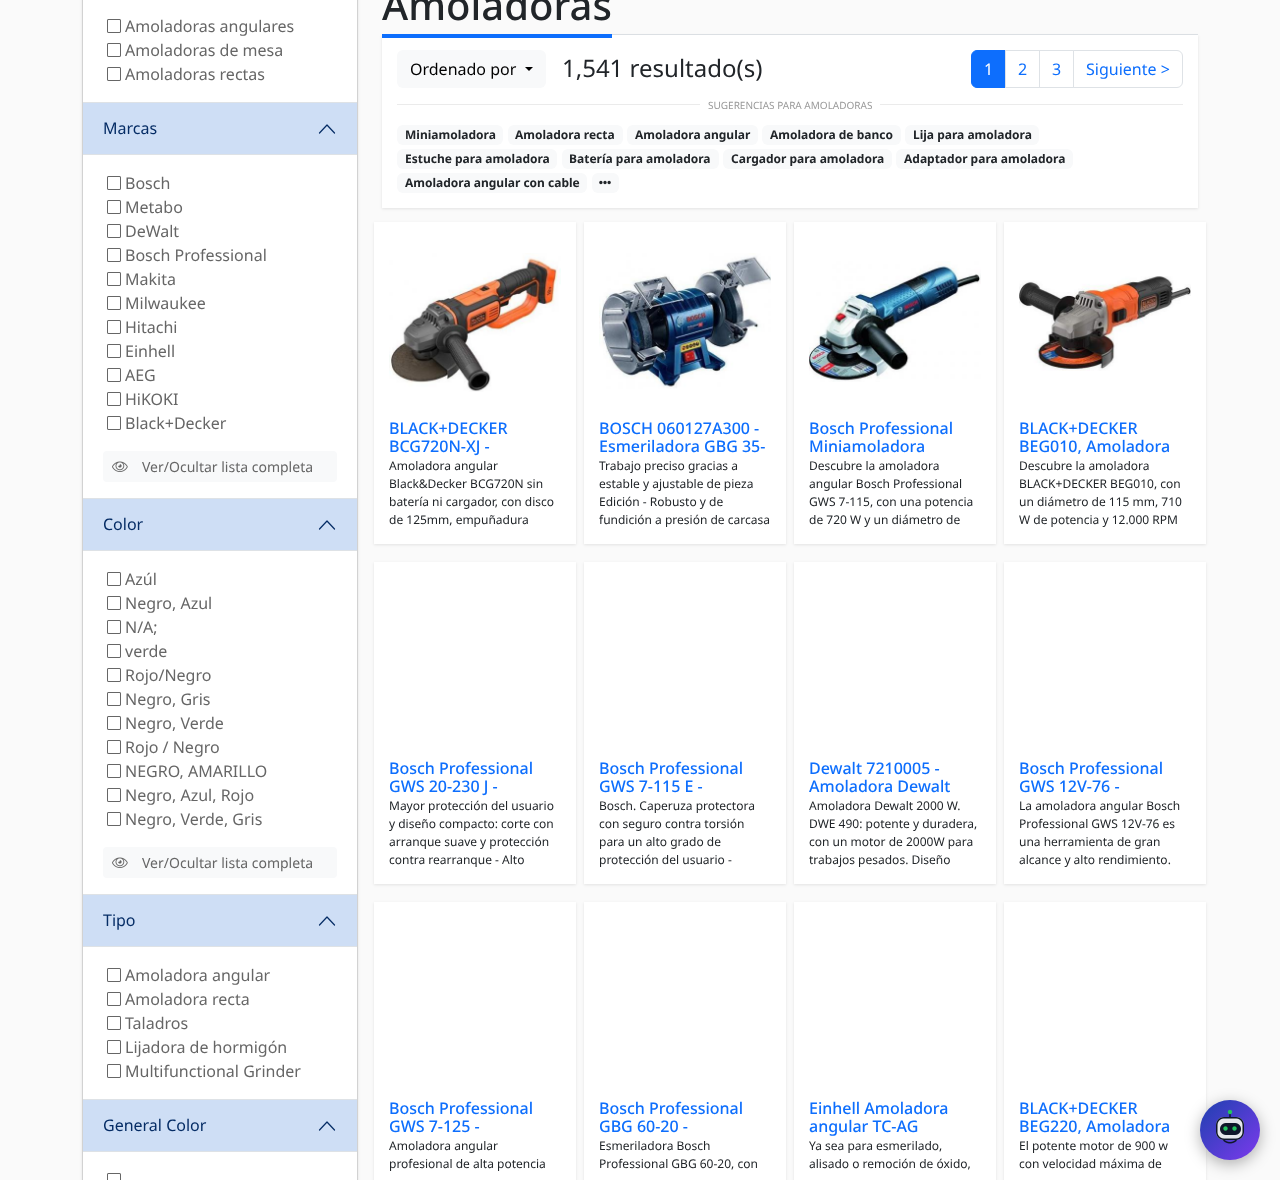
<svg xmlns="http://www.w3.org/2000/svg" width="1280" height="1180">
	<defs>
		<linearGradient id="g1" gradientUnits="userSpaceOnUse" x1="1200" y1="1100" x2="1260" y2="1160"><stop offset="0" stop-color="#1E40AF" /><stop offset="1" stop-color="#7C3AED" /></linearGradient>
	</defs>
	<rect width="100%" height="100%" fill="#FAFAFA" />
	<rect x="82" y="-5" width="276" height="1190" fill="#000000" fill-opacity="0.09" filter="blur(1.5px)" />
	<rect x="82.5" y="-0.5" width="275" height="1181" fill="#FFFFFF" stroke="#D2D2D2" />
	<rect x="83" y="102" width="274" height="1" fill="#DEE2E6" />
	<image x="107" y="19" width="14" height="14" href="assets/img1.png" />
	<text x="125" y="32" font-family="Noto Sans" font-size="16" fill="#666666">Amoladoras angulares</text>
	<image x="107" y="43" width="14" height="14" href="assets/img1.png" />
	<text x="125" y="56" font-family="Noto Sans" font-size="16" fill="#666666">Amoladoras de mesa</text>
	<image x="107" y="67" width="14" height="14" href="assets/img1.png" />
	<text x="125" y="80" font-family="Noto Sans" font-size="16" fill="#666666">Amoladoras rectas</text>
	<rect x="83" y="498" width="274" height="1" fill="#DEE2E6" />
	<rect x="83" y="103" width="274" height="51" fill="#CEDEF5" />
	<rect x="83" y="154" width="274" height="1" fill="#DEE2E6" />
	<text x="103" y="134" font-family="Noto Sans" font-size="16" fill="#052C65">Marcas</text>
	<path d="M334.5 133L327 125L319.5 133" fill="none" stroke="#052C65" stroke-width="1.2" stroke-linecap="round" stroke-linejoin="round" />
	<image x="107" y="176" width="14" height="14" href="assets/img1.png" />
	<text x="125" y="189" font-family="Noto Sans" font-size="16" fill="#666666">Bosch</text>
	<image x="107" y="200" width="14" height="14" href="assets/img1.png" />
	<text x="125" y="213" font-family="Noto Sans" font-size="16" fill="#666666">Metabo</text>
	<image x="107" y="224" width="14" height="14" href="assets/img1.png" />
	<text x="125" y="237" font-family="Noto Sans" font-size="16" fill="#666666">DeWalt</text>
	<image x="107" y="248" width="14" height="14" href="assets/img1.png" />
	<text x="125" y="261" font-family="Noto Sans" font-size="16" fill="#666666">Bosch Professional</text>
	<image x="107" y="272" width="14" height="14" href="assets/img1.png" />
	<text x="125" y="285" font-family="Noto Sans" font-size="16" fill="#666666">Makita</text>
	<image x="107" y="296" width="14" height="14" href="assets/img1.png" />
	<text x="125" y="309" font-family="Noto Sans" font-size="16" fill="#666666">Milwaukee</text>
	<image x="107" y="320" width="14" height="14" href="assets/img1.png" />
	<text x="125" y="333" font-family="Noto Sans" font-size="16" fill="#666666">Hitachi</text>
	<image x="107" y="344" width="14" height="14" href="assets/img1.png" />
	<text x="125" y="357" font-family="Noto Sans" font-size="16" fill="#666666">Einhell</text>
	<image x="107" y="368" width="14" height="14" href="assets/img1.png" />
	<text x="125" y="381" font-family="Noto Sans" font-size="16" fill="#666666">AEG</text>
	<image x="107" y="392" width="14" height="14" href="assets/img1.png" />
	<text x="125" y="405" font-family="Noto Sans" font-size="16" fill="#666666">HiKOKI</text>
	<image x="107" y="416" width="14" height="14" href="assets/img1.png" />
	<text x="125" y="429" font-family="Noto Sans" font-size="16" fill="#666666">Black+Decker</text>
	<rect x="103" y="451" width="234" height="31" rx="4" fill="#F8F9FA" />
	<image x="112" y="461" width="16" height="11" href="assets/img2.png" />
	<text x="142" y="472" font-family="Noto Sans" font-size="14" fill="#666666">Ver/Ocultar lista completa</text>
	<rect x="83" y="894" width="274" height="1" fill="#DEE2E6" />
	<rect x="83" y="499" width="274" height="51" fill="#CEDEF5" />
	<rect x="83" y="550" width="274" height="1" fill="#DEE2E6" />
	<text x="103" y="530" font-family="Noto Sans" font-size="16" fill="#052C65">Color</text>
	<path d="M334.5 529L327 521L319.5 529" fill="none" stroke="#052C65" stroke-width="1.2" stroke-linecap="round" stroke-linejoin="round" />
	<image x="107" y="572" width="14" height="14" href="assets/img1.png" />
	<text x="125" y="585" font-family="Noto Sans" font-size="16" fill="#666666">Azúl</text>
	<image x="107" y="596" width="14" height="14" href="assets/img1.png" />
	<text x="125" y="609" font-family="Noto Sans" font-size="16" fill="#666666">Negro, Azul</text>
	<image x="107" y="620" width="14" height="14" href="assets/img1.png" />
	<text x="125" y="633" font-family="Noto Sans" font-size="16" fill="#666666">N/A;</text>
	<image x="107" y="644" width="14" height="14" href="assets/img1.png" />
	<text x="125" y="657" font-family="Noto Sans" font-size="16" fill="#666666">verde</text>
	<image x="107" y="668" width="14" height="14" href="assets/img1.png" />
	<text x="125" y="681" font-family="Noto Sans" font-size="16" fill="#666666">Rojo/Negro</text>
	<image x="107" y="692" width="14" height="14" href="assets/img1.png" />
	<text x="125" y="705" font-family="Noto Sans" font-size="16" fill="#666666">Negro, Gris</text>
	<image x="107" y="716" width="14" height="14" href="assets/img1.png" />
	<text x="125" y="729" font-family="Noto Sans" font-size="16" fill="#666666">Negro, Verde</text>
	<image x="107" y="740" width="14" height="14" href="assets/img1.png" />
	<text x="125" y="753" font-family="Noto Sans" font-size="16" fill="#666666">Rojo / Negro</text>
	<image x="107" y="764" width="14" height="14" href="assets/img1.png" />
	<text x="125" y="777" font-family="Noto Sans" font-size="16" fill="#666666">NEGRO, AMARILLO</text>
	<image x="107" y="788" width="14" height="14" href="assets/img1.png" />
	<text x="125" y="801" font-family="Noto Sans" font-size="16" fill="#666666">Negro, Azul, Rojo</text>
	<image x="107" y="812" width="14" height="14" href="assets/img1.png" />
	<text x="125" y="825" font-family="Noto Sans" font-size="16" fill="#666666">Negro, Verde, Gris</text>
	<rect x="103" y="847" width="234" height="31" rx="4" fill="#F8F9FA" />
	<image x="112" y="857" width="16" height="11" href="assets/img2.png" />
	<text x="142" y="868" font-family="Noto Sans" font-size="14" fill="#666666">Ver/Ocultar lista completa</text>
	<rect x="83" y="1099" width="274" height="1" fill="#DEE2E6" />
	<rect x="83" y="895" width="274" height="51" fill="#CEDEF5" />
	<rect x="83" y="946" width="274" height="1" fill="#DEE2E6" />
	<text x="103" y="926" font-family="Noto Sans" font-size="16" fill="#052C65">Tipo</text>
	<path d="M334.5 925L327 917L319.5 925" fill="none" stroke="#052C65" stroke-width="1.2" stroke-linecap="round" stroke-linejoin="round" />
	<image x="107" y="968" width="14" height="14" href="assets/img1.png" />
	<text x="125" y="981" font-family="Noto Sans" font-size="16" fill="#666666">Amoladora angular</text>
	<image x="107" y="992" width="14" height="14" href="assets/img1.png" />
	<text x="125" y="1005" font-family="Noto Sans" font-size="16" fill="#666666">Amoladora recta</text>
	<image x="107" y="1016" width="14" height="14" href="assets/img1.png" />
	<text x="125" y="1029" font-family="Noto Sans" font-size="16" fill="#666666">Taladros</text>
	<image x="107" y="1040" width="14" height="14" href="assets/img1.png" />
	<text x="125" y="1053" font-family="Noto Sans" font-size="16" fill="#666666">Lijadora de hormigón</text>
	<image x="107" y="1064" width="14" height="14" href="assets/img1.png" />
	<text x="125" y="1077" font-family="Noto Sans" font-size="16" fill="#666666">Multifunctional Grinder</text>
	<rect x="83" y="1100" width="274" height="51" fill="#CEDEF5" />
	<rect x="83" y="1151" width="274" height="1" fill="#DEE2E6" />
	<text x="103" y="1131" font-family="Noto Sans" font-size="16" fill="#052C65">General Color</text>
	<path d="M334.5 1130L327 1122L319.5 1130" fill="none" stroke="#052C65" stroke-width="1.2" stroke-linecap="round" stroke-linejoin="round" />
	<image x="107" y="1173" width="14" height="7" href="assets/img3.png" />
	<rect x="612" y="34" width="586" height="1" fill="#DEE2E6" />
	<rect x="382" y="36" width="816" height="173" fill="#000000" fill-opacity="0.09" filter="blur(1.5px)" />
	<rect x="382" y="35" width="816" height="173" fill="#FFFFFF" />
	<rect x="382" y="34" width="230" height="4" fill="#0D6EFD" />
	<text x="382" y="20" font-family="Noto Sans" font-size="40" font-weight="500" fill="#212529">Amoladoras</text>
	<rect x="397" y="50" width="149" height="38" rx="6" fill="#F8F9FA" />
	<text x="410" y="75" font-family="Noto Sans" font-size="16" fill="#000000">Ordenado por</text>
	<path d="M525 67H533L529 71Z" fill="#000000" />
	<text x="562" y="77" font-family="Noto Sans" font-size="24" fill="#212529">1,541 resultado(s)</text>
	<path d="M977 50.5H1005.5V87.5H977C974 87.5 971.5 85 971.5 82V56C971.5 53 974 50.5 977 50.5Z" fill="#0D6EFD" stroke="#0D6EFD" />
	<text x="984" y="75" font-family="Noto Sans" font-size="16" fill="#FFFFFF">1</text>
	<rect x="1005.5" y="50.5" width="34" height="37" fill="none" stroke="#DEE2E6" />
	<text x="1018" y="75" font-family="Noto Sans" font-size="16" fill="#0D6EFD">2</text>
	<rect x="1039.5" y="50.5" width="34" height="37" fill="none" stroke="#DEE2E6" />
	<text x="1052" y="75" font-family="Noto Sans" font-size="16" fill="#0D6EFD">3</text>
	<path d="M1073.5 50.5H1177C1180 50.5 1182.5 53 1182.5 56V82C1182.5 85 1180 87.5 1177 87.5H1073.5Z" fill="#FFFFFF" stroke="#DEE2E6" />
	<text x="1086" y="75" font-family="Noto Sans" font-size="16" fill="#0D6EFD">Siguiente &gt;</text>
	<rect x="397" y="104" width="786" height="1" fill="#EBEBEB" />
	<rect x="700" y="104" width="180" height="1" fill="#FFFFFF" />
	<text x="708" y="109" font-family="Noto Sans" font-size="10" fill="#999999">SUGERENCIAS PARA AMOLADORAS</text>
	<rect x="397" y="125" width="106" height="20" rx="6" fill="#F8F9FA" />
	<text x="405" y="139" font-family="Noto Sans" font-size="12" font-weight="700" fill="#212529">Miniamoladora</text>
	<rect x="508" y="125" width="115" height="20" rx="6" fill="#F8F9FA" />
	<text x="515" y="139" font-family="Noto Sans" font-size="12" font-weight="700" fill="#212529">Amoladora recta</text>
	<rect x="627" y="125" width="131" height="20" rx="6" fill="#F8F9FA" />
	<text x="635" y="139" font-family="Noto Sans" font-size="12" font-weight="700" fill="#212529">Amoladora angular</text>
	<rect x="762" y="125" width="139" height="20" rx="6" fill="#F8F9FA" />
	<text x="770" y="139" font-family="Noto Sans" font-size="12" font-weight="700" fill="#212529">Amoladora de banco</text>
	<rect x="905" y="125" width="134" height="20" rx="6" fill="#F8F9FA" />
	<text x="913" y="139" font-family="Noto Sans" font-size="12" font-weight="700" fill="#212529">Lija para amoladora</text>
	<rect x="397" y="149" width="160" height="20" rx="6" fill="#F8F9FA" />
	<text x="405" y="163" font-family="Noto Sans" font-size="12" font-weight="700" fill="#212529">Estuche para amoladora</text>
	<rect x="562" y="149" width="157" height="20" rx="6" fill="#F8F9FA" />
	<text x="569" y="163" font-family="Noto Sans" font-size="12" font-weight="700" fill="#212529">Batería para amoladora</text>
	<rect x="723" y="149" width="169" height="20" rx="6" fill="#F8F9FA" />
	<text x="731" y="163" font-family="Noto Sans" font-size="12" font-weight="700" fill="#212529">Cargador para amoladora</text>
	<rect x="896" y="149" width="177" height="20" rx="6" fill="#F8F9FA" />
	<text x="904" y="163" font-family="Noto Sans" font-size="12" font-weight="700" fill="#212529">Adaptador para amoladora</text>
	<rect x="397" y="173" width="190" height="20" rx="6" fill="#F8F9FA" />
	<text x="405" y="187" font-family="Noto Sans" font-size="12" font-weight="700" fill="#212529">Amoladora angular con cable</text>
	<rect x="592" y="173" width="27" height="20" rx="6" fill="#F8F9FA" />
	<image x="599" y="180" width="12" height="5" href="assets/img4.png" />
	<rect x="374" y="223" width="202" height="322" fill="#000000" fill-opacity="0.09" filter="blur(1.5px)" />
	<rect x="374" y="222" width="202" height="322" fill="#FFFFFF" />
	<image x="389" y="253" width="172" height="139" href="assets/img5.png" />
	<g font-family="Noto Sans" font-size="16" font-weight="500" fill="#0D6EFD">
		<text x="389" y="434">BLACK+DECKER</text>
		<text x="389" y="452">BCG720N-XJ -</text>
	</g>
	<g font-family="Noto Sans" font-size="12" fill="#212529">
		<text x="389" y="470">Amoladora angular</text>
		<text x="389" y="488">Black&amp;Decker BCG720N sin</text>
		<text x="389" y="506">batería ni cargador, con disco</text>
		<text x="389" y="524">de 125mm, empuñadura</text>
	</g>
	<rect x="584" y="223" width="202" height="322" fill="#000000" fill-opacity="0.09" filter="blur(1.5px)" />
	<rect x="584" y="222" width="202" height="322" fill="#FFFFFF" />
	<image x="599" y="253" width="172" height="136" href="assets/img6.png" />
	<g font-family="Noto Sans" font-size="16" font-weight="500" fill="#0D6EFD">
		<text x="599" y="434">BOSCH 060127A300 -</text>
		<text x="599" y="452">Esmeriladora GBG 35-</text>
	</g>
	<g font-family="Noto Sans" font-size="12" fill="#212529">
		<text x="599" y="470">Trabajo preciso gracias a</text>
		<text x="599" y="488">estable y ajustable de pieza</text>
		<text x="599" y="506">Edición - Robusto y de</text>
		<text x="599" y="524">fundición a presión de carcasa</text>
	</g>
	<rect x="794" y="223" width="202" height="322" fill="#000000" fill-opacity="0.09" filter="blur(1.5px)" />
	<rect x="794" y="222" width="202" height="322" fill="#FFFFFF" />
	<image x="809" y="261" width="172" height="121" href="assets/img7.png" />
	<g font-family="Noto Sans" font-size="16" font-weight="500" fill="#0D6EFD">
		<text x="809" y="434">Bosch Professional</text>
		<text x="809" y="452">Miniamoladora</text>
	</g>
	<g font-family="Noto Sans" font-size="12" fill="#212529">
		<text x="809" y="470">Descubre la amoladora</text>
		<text x="809" y="488">angular Bosch Professional</text>
		<text x="809" y="506">GWS 7-115, con una potencia</text>
		<text x="809" y="524">de 720 W y un diámetro de</text>
	</g>
	<rect x="1004" y="223" width="202" height="322" fill="#000000" fill-opacity="0.09" filter="blur(1.5px)" />
	<rect x="1004" y="222" width="202" height="322" fill="#FFFFFF" />
	<image x="1019" y="276" width="172" height="95" href="assets/img8.png" />
	<g font-family="Noto Sans" font-size="16" font-weight="500" fill="#0D6EFD">
		<text x="1019" y="434">BLACK+DECKER</text>
		<text x="1019" y="452">BEG010, Amoladora</text>
	</g>
	<g font-family="Noto Sans" font-size="12" fill="#212529">
		<text x="1019" y="470">Descubre la amoladora</text>
		<text x="1019" y="488">BLACK+DECKER BEG010, con</text>
		<text x="1019" y="506">un diámetro de 115 mm, 710</text>
		<text x="1019" y="524">W de potencia y 12.000 RPM</text>
	</g>
	<rect x="374" y="563" width="202" height="322" fill="#000000" fill-opacity="0.09" filter="blur(1.5px)" />
	<rect x="374" y="562" width="202" height="322" fill="#FFFFFF" />
	<g font-family="Noto Sans" font-size="16" font-weight="500" fill="#0D6EFD">
		<text x="389" y="774">Bosch Professional</text>
		<text x="389" y="792">GWS 20-230 J -</text>
	</g>
	<g font-family="Noto Sans" font-size="12" fill="#212529">
		<text x="389" y="810">Mayor protección del usuario</text>
		<text x="389" y="828">y diseño compacto: corte con</text>
		<text x="389" y="846">arranque suave y protección</text>
		<text x="389" y="864">contra rearranque - Alto</text>
	</g>
	<rect x="584" y="563" width="202" height="322" fill="#000000" fill-opacity="0.09" filter="blur(1.5px)" />
	<rect x="584" y="562" width="202" height="322" fill="#FFFFFF" />
	<g font-family="Noto Sans" font-size="16" font-weight="500" fill="#0D6EFD">
		<text x="599" y="774">Bosch Professional</text>
		<text x="599" y="792">GWS 7-115 E -</text>
	</g>
	<g font-family="Noto Sans" font-size="12" fill="#212529">
		<text x="599" y="810">Bosch. Caperuza protectora</text>
		<text x="599" y="828">con seguro contra torsión</text>
		<text x="599" y="846">para un alto grado de</text>
		<text x="599" y="864">protección del usuario -</text>
	</g>
	<rect x="794" y="563" width="202" height="322" fill="#000000" fill-opacity="0.09" filter="blur(1.5px)" />
	<rect x="794" y="562" width="202" height="322" fill="#FFFFFF" />
	<g font-family="Noto Sans" font-size="16" font-weight="500" fill="#0D6EFD">
		<text x="809" y="774">Dewalt 7210005 -</text>
		<text x="809" y="792">Amoladora Dewalt</text>
	</g>
	<g font-family="Noto Sans" font-size="12" fill="#212529">
		<text x="809" y="810">Amoladora Dewalt 2000 W.</text>
		<text x="809" y="828">DWE 490: potente y duradera,</text>
		<text x="809" y="846">con un motor de 2000W para</text>
		<text x="809" y="864">trabajos pesados. Diseño</text>
	</g>
	<rect x="1004" y="563" width="202" height="322" fill="#000000" fill-opacity="0.09" filter="blur(1.5px)" />
	<rect x="1004" y="562" width="202" height="322" fill="#FFFFFF" />
	<g font-family="Noto Sans" font-size="16" font-weight="500" fill="#0D6EFD">
		<text x="1019" y="774">Bosch Professional</text>
		<text x="1019" y="792">GWS 12V-76 -</text>
	</g>
	<g font-family="Noto Sans" font-size="12" fill="#212529">
		<text x="1019" y="810">La amoladora angular Bosch</text>
		<text x="1019" y="828">Professional GWS 12V-76 es</text>
		<text x="1019" y="846">una herramienta de gran</text>
		<text x="1019" y="864">alcance y alto rendimiento.</text>
	</g>
	<rect x="374" y="903" width="202" height="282" fill="#000000" fill-opacity="0.09" filter="blur(1.5px)" />
	<rect x="374" y="902" width="202" height="278" fill="#FFFFFF" />
	<g font-family="Noto Sans" font-size="16" font-weight="500" fill="#0D6EFD">
		<text x="389" y="1114">Bosch Professional</text>
		<text x="389" y="1132">GWS 7-125 -</text>
	</g>
	<g font-family="Noto Sans" font-size="12" fill="#212529">
		<text x="389" y="1150">Amoladora angular</text>
		<text x="389" y="1168">profesional de alta potencia</text>
	</g>
	<rect x="584" y="903" width="202" height="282" fill="#000000" fill-opacity="0.09" filter="blur(1.5px)" />
	<rect x="584" y="902" width="202" height="278" fill="#FFFFFF" />
	<g font-family="Noto Sans" font-size="16" font-weight="500" fill="#0D6EFD">
		<text x="599" y="1114">Bosch Professional</text>
		<text x="599" y="1132">GBG 60-20 -</text>
	</g>
	<g font-family="Noto Sans" font-size="12" fill="#212529">
		<text x="599" y="1150">Esmeriladora Bosch</text>
		<text x="599" y="1168">Professional GBG 60-20, con</text>
	</g>
	<rect x="794" y="903" width="202" height="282" fill="#000000" fill-opacity="0.09" filter="blur(1.5px)" />
	<rect x="794" y="902" width="202" height="278" fill="#FFFFFF" />
	<g font-family="Noto Sans" font-size="16" font-weight="500" fill="#0D6EFD">
		<text x="809" y="1114">Einhell Amoladora</text>
		<text x="809" y="1132">angular TC-AG</text>
	</g>
	<g font-family="Noto Sans" font-size="12" fill="#212529">
		<text x="809" y="1150">Ya sea para esmerilado,</text>
		<text x="809" y="1168">alisado o remoción de óxido,</text>
	</g>
	<rect x="1004" y="903" width="202" height="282" fill="#000000" fill-opacity="0.09" filter="blur(1.5px)" />
	<rect x="1004" y="902" width="202" height="278" fill="#FFFFFF" />
	<g font-family="Noto Sans" font-size="16" font-weight="500" fill="#0D6EFD">
		<text x="1019" y="1114">BLACK+DECKER</text>
		<text x="1019" y="1132">BEG220, Amoladora</text>
	</g>
	<g font-family="Noto Sans" font-size="12" fill="#212529">
		<text x="1019" y="1150">El potente motor de 900 w</text>
		<text x="1019" y="1168">con velocidad máxima de</text>
	</g>
	<rect x="1200" y="1104" width="60" height="60" rx="30" fill="#000000" fill-opacity="0.3" filter="blur(7.5px)" />
	<circle cx="1230" cy="1130" r="30" fill="url(#g1)" />
	<image x="1216" y="1109" width="28" height="35" href="assets/img9.png" />
</svg>
